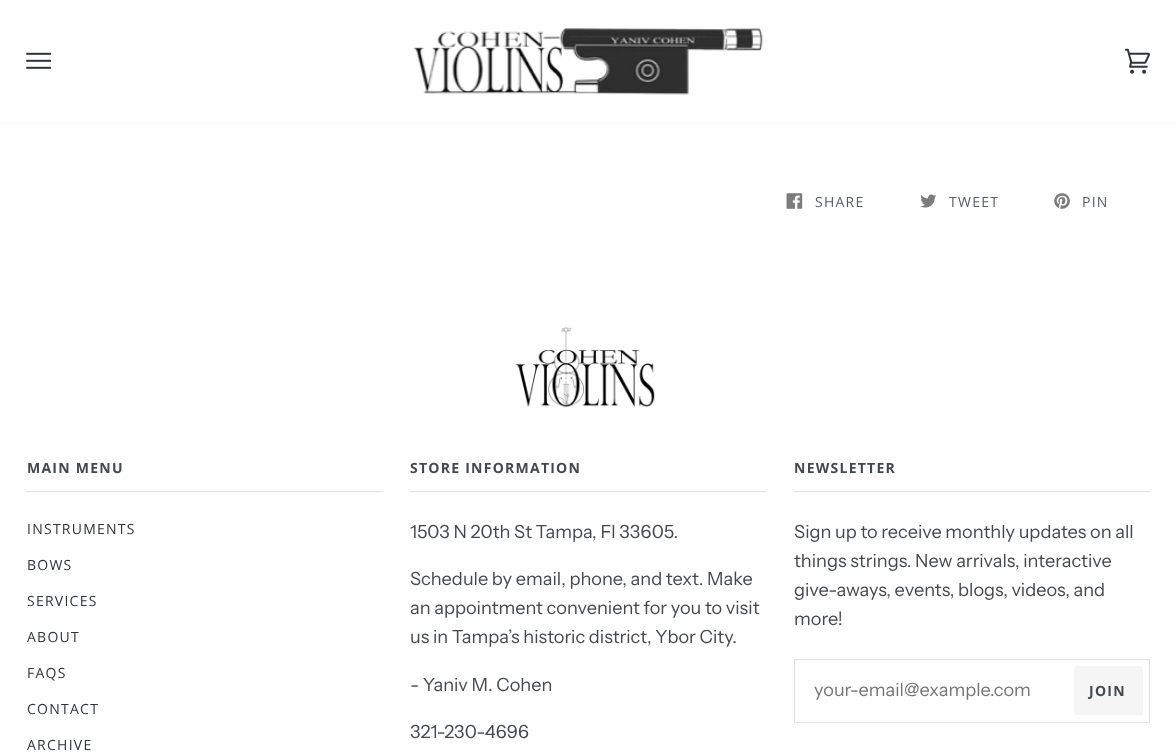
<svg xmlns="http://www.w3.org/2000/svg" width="1176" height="754">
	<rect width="100%" height="100%" fill="#FFFFFF" />
	<rect x="0" y="123" width="1176" height="1" fill="#F7F7F7" />
	<image x="26" y="52" width="25" height="17" href="assets/img1.png" />
	<image x="413" y="28" width="350" height="67" href="assets/img2.png" />
	<image x="1125" y="48" width="25" height="26" href="assets/img3.png" />
	<image x="786" y="193" width="17" height="16" href="assets/img4.png" />
	<text x="815" y="207" font-family="Open Sans" font-size="14" letter-spacing="1.25" fill="#585D60">SHARE</text>
	<image x="920" y="194" width="16" height="14" href="assets/img5.png" />
	<text x="949" y="207" font-family="Open Sans" font-size="14" letter-spacing="1.25" fill="#585D60">TWEET</text>
	<image x="1054" y="193" width="16" height="16" href="assets/img6.png" />
	<text x="1082" y="207" font-family="Open Sans" font-size="14" letter-spacing="1.25" fill="#585D60">PIN</text>
	<image x="515" y="327" width="140" height="81" href="assets/img7.png" />
	<text x="27" y="473" font-family="Open Sans" font-size="14" font-weight="700" letter-spacing="1.25" fill="#43484C">MAIN MENU</text>
	<rect x="26" y="491" width="357" height="1" fill="#E0E1E1" />
	<g font-family="Open Sans" font-size="14" letter-spacing="1.25" fill="#2E3438">
		<text x="27" y="534">INSTRUMENTS</text>
		<text x="27" y="570">BOWS</text>
		<text x="27" y="606">SERVICES</text>
		<text x="27" y="642">ABOUT</text>
		<text x="27" y="678">FAQS</text>
		<text x="27" y="714">CONTACT</text>
		<text x="27" y="750">ARCHIVE</text>
	</g>
	<text x="410" y="473" font-family="Open Sans" font-size="14" font-weight="700" letter-spacing="1.25" fill="#43484C">STORE INFORMATION</text>
	<rect x="410" y="491" width="356" height="1" fill="#E0E1E1" />
	<g font-family="Instrument Sans" font-size="18.2" fill="#43484C">
		<text x="410" y="538">1503 N 20th St Tampa, Fl 33605.</text>
		<text x="410" y="585">Schedule by email, phone, and text. Make</text>
		<text x="410" y="614">an appointment convenient for you to visit</text>
		<text x="410" y="643">us in Tampa’s historic district, Ybor City.</text>
		<text x="410" y="691">- Yaniv M. Cohen</text>
		<text x="410" y="738">321-230-4696</text>
	</g>
	<text x="794" y="473" font-family="Open Sans" font-size="14" font-weight="700" letter-spacing="1.25" fill="#43484C">NEWSLETTER</text>
	<rect x="794" y="491" width="356" height="1" fill="#E0E1E1" />
	<g font-family="Instrument Sans" font-size="18.2" fill="#43484C">
		<text x="794" y="538">Sign up to receive monthly updates on all</text>
		<text x="794" y="567">things strings. New arrivals, interactive</text>
		<text x="794" y="596">give-aways, events, blogs, videos, and</text>
		<text x="794" y="625">more!</text>
	</g>
	<rect x="794.5" y="659.5" width="355" height="63" fill="none" stroke="#E0E1E1" />
	<text x="814" y="696" font-family="Instrument Sans" font-size="18.2" fill="#757575">your-email@example.com</text>
	<rect x="1074" y="666" width="69" height="49" rx="2.5" fill="#F5F5F5" />
	<text x="1089" y="696" font-family="Open Sans" font-size="14" font-weight="700" letter-spacing="1.25" fill="#43484C">JOIN</text>
</svg>
